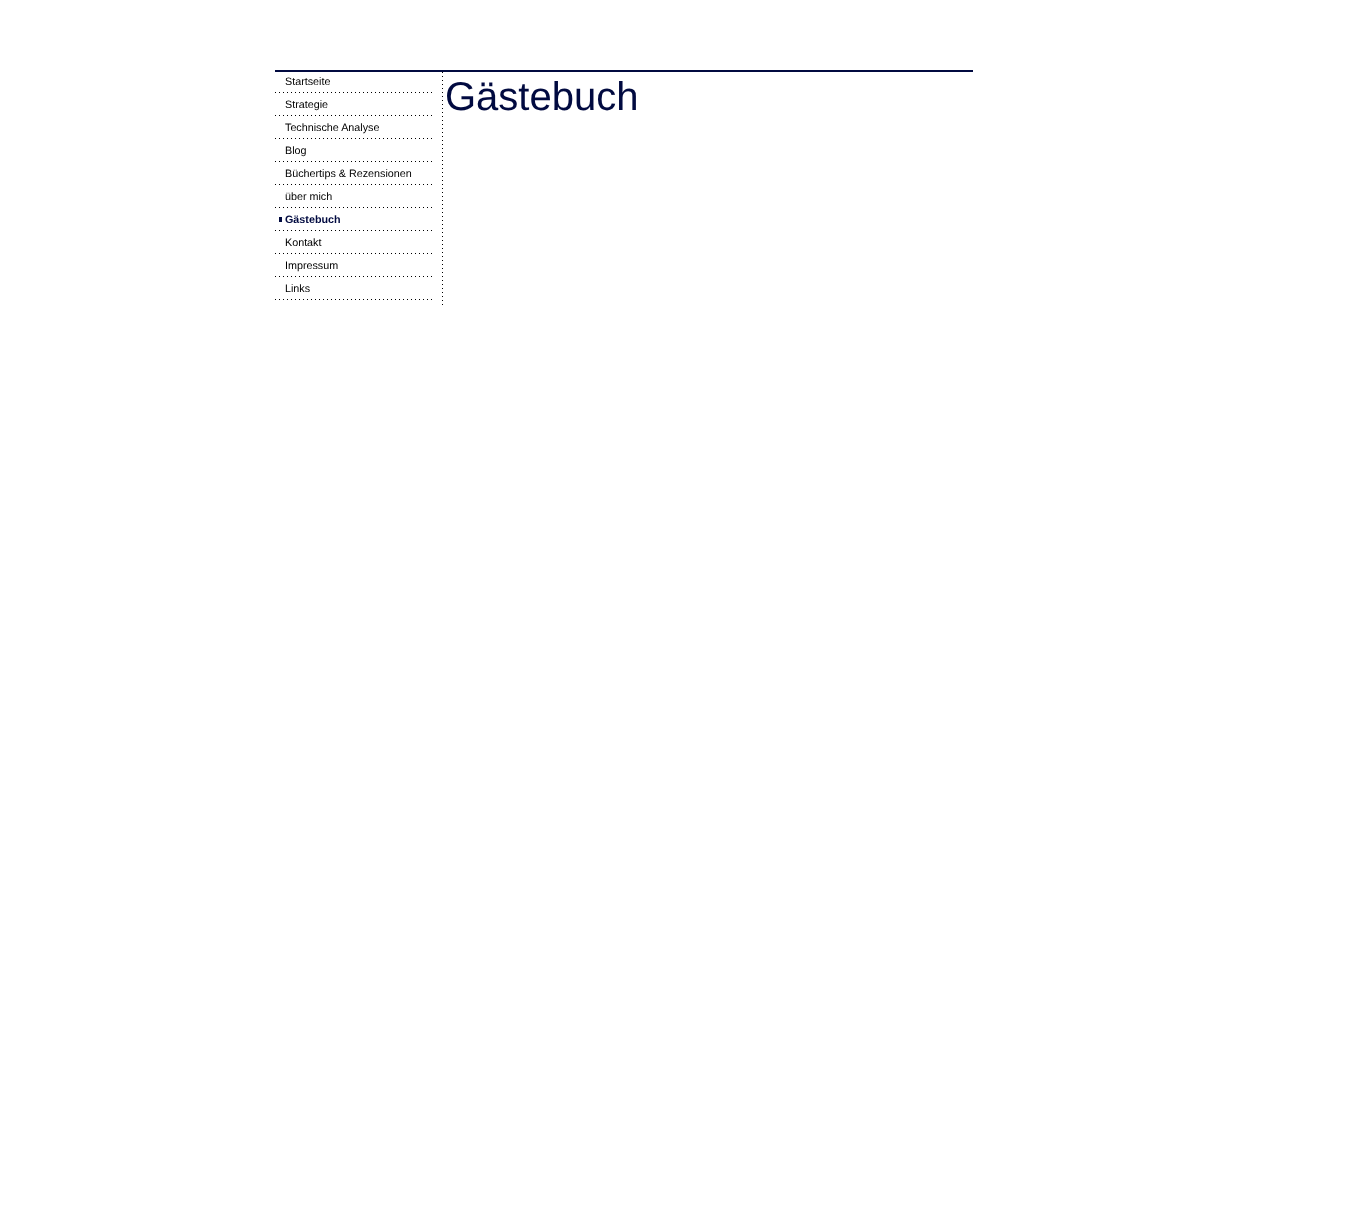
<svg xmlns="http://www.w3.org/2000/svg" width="1350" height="1208">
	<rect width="100%" height="100%" fill="#FFFFFF" />
	<rect x="275" y="70" width="698" height="2" fill="#010A40" />
	<text x="285" y="85" font-family="Liberation Sans" font-size="10.75" fill="#000000">Startseite</text>
	<image x="275" y="92" width="157" height="1" href="assets/img1.png" />
	<text x="285" y="108" font-family="Liberation Sans" font-size="10.75" fill="#000000">Strategie</text>
	<image x="275" y="115" width="157" height="1" href="assets/img1.png" />
	<text x="285" y="131" font-family="Liberation Sans" font-size="10.75" fill="#000000">Technische Analyse</text>
	<image x="275" y="138" width="157" height="1" href="assets/img1.png" />
	<text x="285" y="154" font-family="Liberation Sans" font-size="10.75" fill="#000000">Blog</text>
	<image x="275" y="161" width="157" height="1" href="assets/img1.png" />
	<text x="285" y="177" font-family="Liberation Sans" font-size="10.75" fill="#000000">Büchertips &amp; Rezensionen</text>
	<image x="275" y="184" width="157" height="1" href="assets/img1.png" />
	<text x="285" y="200" font-family="Liberation Sans" font-size="10.75" fill="#000000">über mich</text>
	<image x="275" y="207" width="157" height="1" href="assets/img1.png" />
	<text x="285" y="223" font-family="Liberation Sans" font-size="10.75" font-weight="700" fill="#010A40">Gästebuch</text>
	<rect x="279" y="217" width="3" height="5" fill="#010A40" />
	<image x="275" y="230" width="157" height="1" href="assets/img1.png" />
	<text x="285" y="246" font-family="Liberation Sans" font-size="10.75" fill="#000000">Kontakt</text>
	<image x="275" y="253" width="157" height="1" href="assets/img1.png" />
	<text x="285" y="269" font-family="Liberation Sans" font-size="10.75" fill="#000000">Impressum</text>
	<image x="275" y="276" width="157" height="1" href="assets/img1.png" />
	<text x="285" y="292" font-family="Liberation Sans" font-size="10.75" fill="#000000">Links</text>
	<image x="275" y="299" width="157" height="1" href="assets/img1.png" />
	<image x="442" y="72" width="1" height="233" href="assets/img2.png" />
	<text x="445" y="110" font-family="Liberation Sans" font-size="40" fill="#010A40">Gästebuch</text>
</svg>
